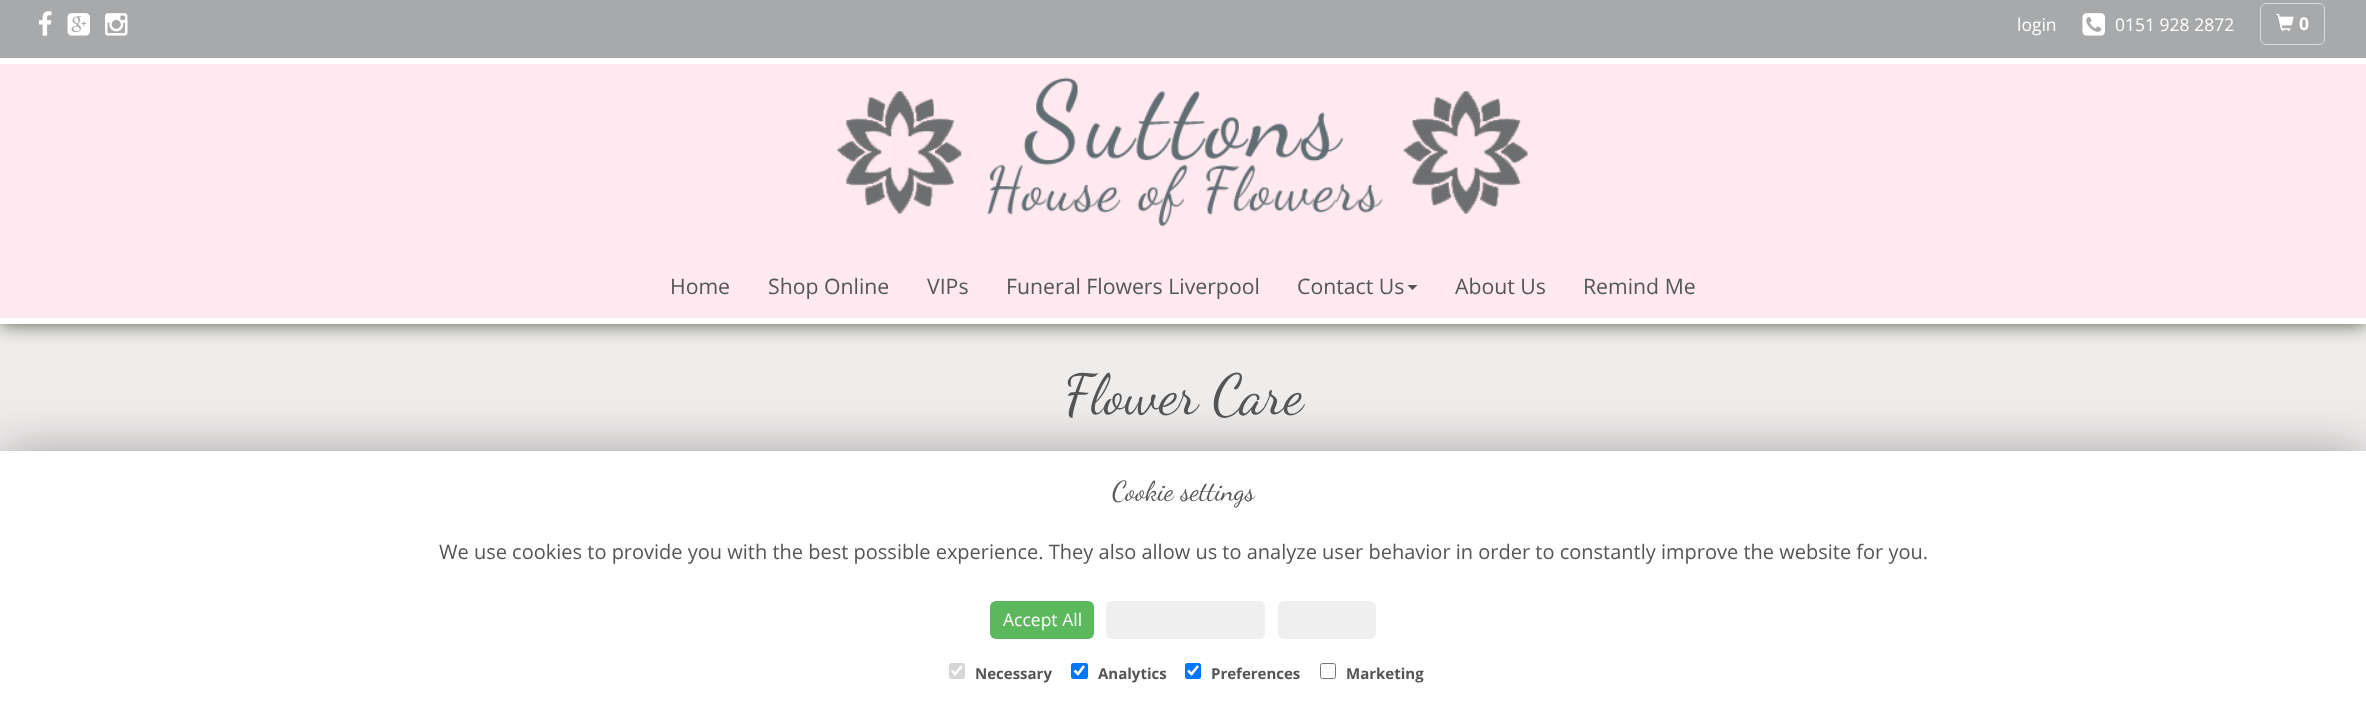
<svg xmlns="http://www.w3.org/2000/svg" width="2366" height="716">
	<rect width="100%" height="100%" fill="#EFECEC" />
	<rect x="0" y="0" width="2366" height="324" fill="#4E5849" filter="blur(9.5px)" />
	<rect x="0" y="0" width="2366" height="58" fill="#A7A9AB" />
	<rect x="0" y="58" width="2366" height="6" fill="#FFFFFF" />
	<image x="38" y="11" width="14" height="25" href="assets/img1.png" />
	<image x="67" y="13" width="23" height="23" href="assets/img2.png" />
	<image x="105" y="13" width="23" height="23" href="assets/img3.png" />
	<text x="2017" y="31" font-family="Open Sans" font-size="17.5" fill="#FFFFFF">login</text>
	<image x="2082" y="13" width="23" height="23" href="assets/img4.png" />
	<text x="2115" y="31" font-family="Open Sans" font-size="17.5" fill="#FFFFFF">0151 928 2872</text>
	<rect x="2260.5" y="3.5" width="64" height="41" rx="5.5" fill="none" stroke="#DADADA" />
	<image x="2276" y="13" width="18" height="19" href="assets/img5.png" />
	<text x="2299" y="30" font-family="Open Sans" font-size="17.5" font-weight="700" fill="#FFFFFF">0</text>
	<rect x="0" y="64" width="2366" height="254" fill="#FDE9EF" />
	<rect x="0" y="318" width="2366" height="6" fill="#FFFFFF" />
	<image x="837" y="77" width="691" height="150" href="assets/img6.png" />
	<g font-family="Open Sans" font-size="21.25" fill="#555555">
		<text x="670" y="294">Home</text>
		<text x="768" y="294">Shop Online</text>
		<text x="927" y="294">VIPs</text>
		<text x="1006" y="294">Funeral Flowers Liverpool</text>
		<text x="1297" y="294">Contact Us</text>
	</g>
	<path d="M1407.5 285H1417.5L1412.5 290Z" fill="#555555" />
	<g font-family="Open Sans" font-size="21.25" fill="#555555">
		<text x="1455" y="294">About Us</text>
		<text x="1583" y="294">Remind Me</text>
	</g>
	<text x="1064" y="413" font-family="Dancing Script" font-size="56.25" fill="#555555">Flower Care</text>
	<rect x="0" y="451" width="2366" height="265" fill="#000000" fill-opacity="0.31" filter="blur(25px)" />
	<rect x="0" y="451" width="2366" height="265" fill="#FFFFFF" />
	<text x="1112" y="500" font-family="Dancing Script" font-size="27.5" fill="#555555">Cookie settings</text>
	<text x="439" y="559" font-family="Open Sans" font-size="20" fill="#555555">We use cookies to provide you with the best possible experience. They also allow us to analyze user behavior in order to constantly improve the website for you.</text>
	<rect x="990" y="601" width="104" height="38" rx="6" fill="#5CB85C" />
	<text x="1003" y="626" font-family="Open Sans" font-size="17.5" fill="#FFFFFF">Accept All</text>
	<rect x="1106" y="601" width="159" height="38" rx="6" fill="#EFEFEF" />
	<rect x="1278" y="601" width="98" height="38" rx="6" fill="#EFEFEF" />
	<rect x="949" y="663" width="16" height="16" rx="2.5" fill="#D6D6D6" />
	<path d="M952 670.5L955 674L962 666" fill="none" stroke="#FFFFFF" stroke-width="2.6" />
	<text x="975" y="679" font-family="Open Sans" font-size="15" font-weight="700" fill="#555555">Necessary</text>
	<rect x="1071" y="663" width="17" height="16" rx="2.5" fill="#0075FF" />
	<path d="M1074.5 670.5L1078 674L1084 666" fill="none" stroke="#FFFFFF" stroke-width="2.6" />
	<text x="1098" y="679" font-family="Open Sans" font-size="15" font-weight="700" fill="#555555">Analytics</text>
	<rect x="1185" y="663" width="16" height="16" rx="2.5" fill="#0075FF" />
	<path d="M1188 670.5L1191.5 674L1198 666" fill="none" stroke="#FFFFFF" stroke-width="2.6" />
	<text x="1211" y="679" font-family="Open Sans" font-size="15" font-weight="700" fill="#555555">Preferences</text>
	<rect x="1320.5" y="663.5" width="15" height="15" rx="2" fill="none" stroke="#767676" />
	<text x="1346" y="679" font-family="Open Sans" font-size="15" font-weight="700" fill="#555555">Marketing</text>
</svg>
